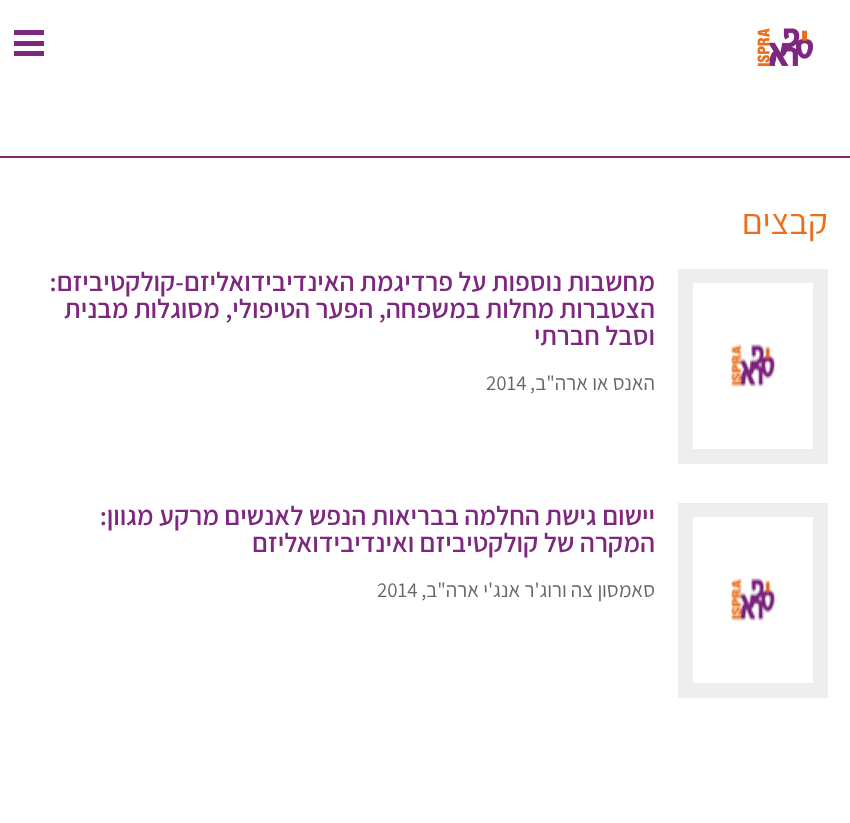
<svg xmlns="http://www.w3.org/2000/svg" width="850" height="823">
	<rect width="100%" height="100%" fill="#FFFFFF" />
	<image x="757" y="28" width="56" height="38" href="assets/img1.png" />
	<rect x="14" y="30" width="30" height="5" fill="#7D277E" />
	<rect x="14" y="41" width="30" height="5" fill="#7D277E" />
	<rect x="14" y="51" width="30" height="5" fill="#7D277E" />
	<rect x="0" y="156" width="850" height="2" fill="#7D277E" />
	<text x="828" y="234" font-family="Assistant" font-size="36" direction="rtl" fill="#EB6E1C">קבצים</text>
	<rect x="685.5" y="276.5" width="135" height="180" fill="none" stroke="#EEEEEE" stroke-width="15" />
	<image x="693" y="283" width="120" height="104" href="assets/img2.png" />
	<g font-family="Assistant" font-size="27" font-weight="600" direction="rtl" fill="#7D277E">
		<text x="655" y="291">מחשבות נוספות על פרדיגמת האינדיבידואליזם-קולקטיביזם:</text>
		<text x="655" y="318">הצטברות מחלות במשפחה, הפער הטיפולי, מסוגלות מבנית</text>
		<text x="655" y="345">וסבל חברתי</text>
	</g>
	<text x="655" y="390" font-family="Assistant" font-size="21" direction="rtl" fill="#666666">האנס או ארה"ב,</text>
	<text x="486" y="390" font-family="Assistant" font-size="21" fill="#666666">2014</text>
	<rect x="685.5" y="510.5" width="135" height="180" fill="none" stroke="#EEEEEE" stroke-width="15" />
	<image x="693" y="517" width="120" height="104" href="assets/img2.png" />
	<g font-family="Assistant" font-size="27" font-weight="600" direction="rtl" fill="#7D277E">
		<text x="655" y="525">יישום גישת החלמה בבריאות הנפש לאנשים מרקע מגוון:</text>
		<text x="655" y="552">המקרה של קולקטיביזם ואינדיבידואליזם</text>
	</g>
	<text x="655" y="597" font-family="Assistant" font-size="21" direction="rtl" fill="#666666">סאמסון צה ורוג'ר אנג'י ארה"ב,</text>
	<text x="377" y="597" font-family="Assistant" font-size="21" fill="#666666">2014</text>
</svg>
